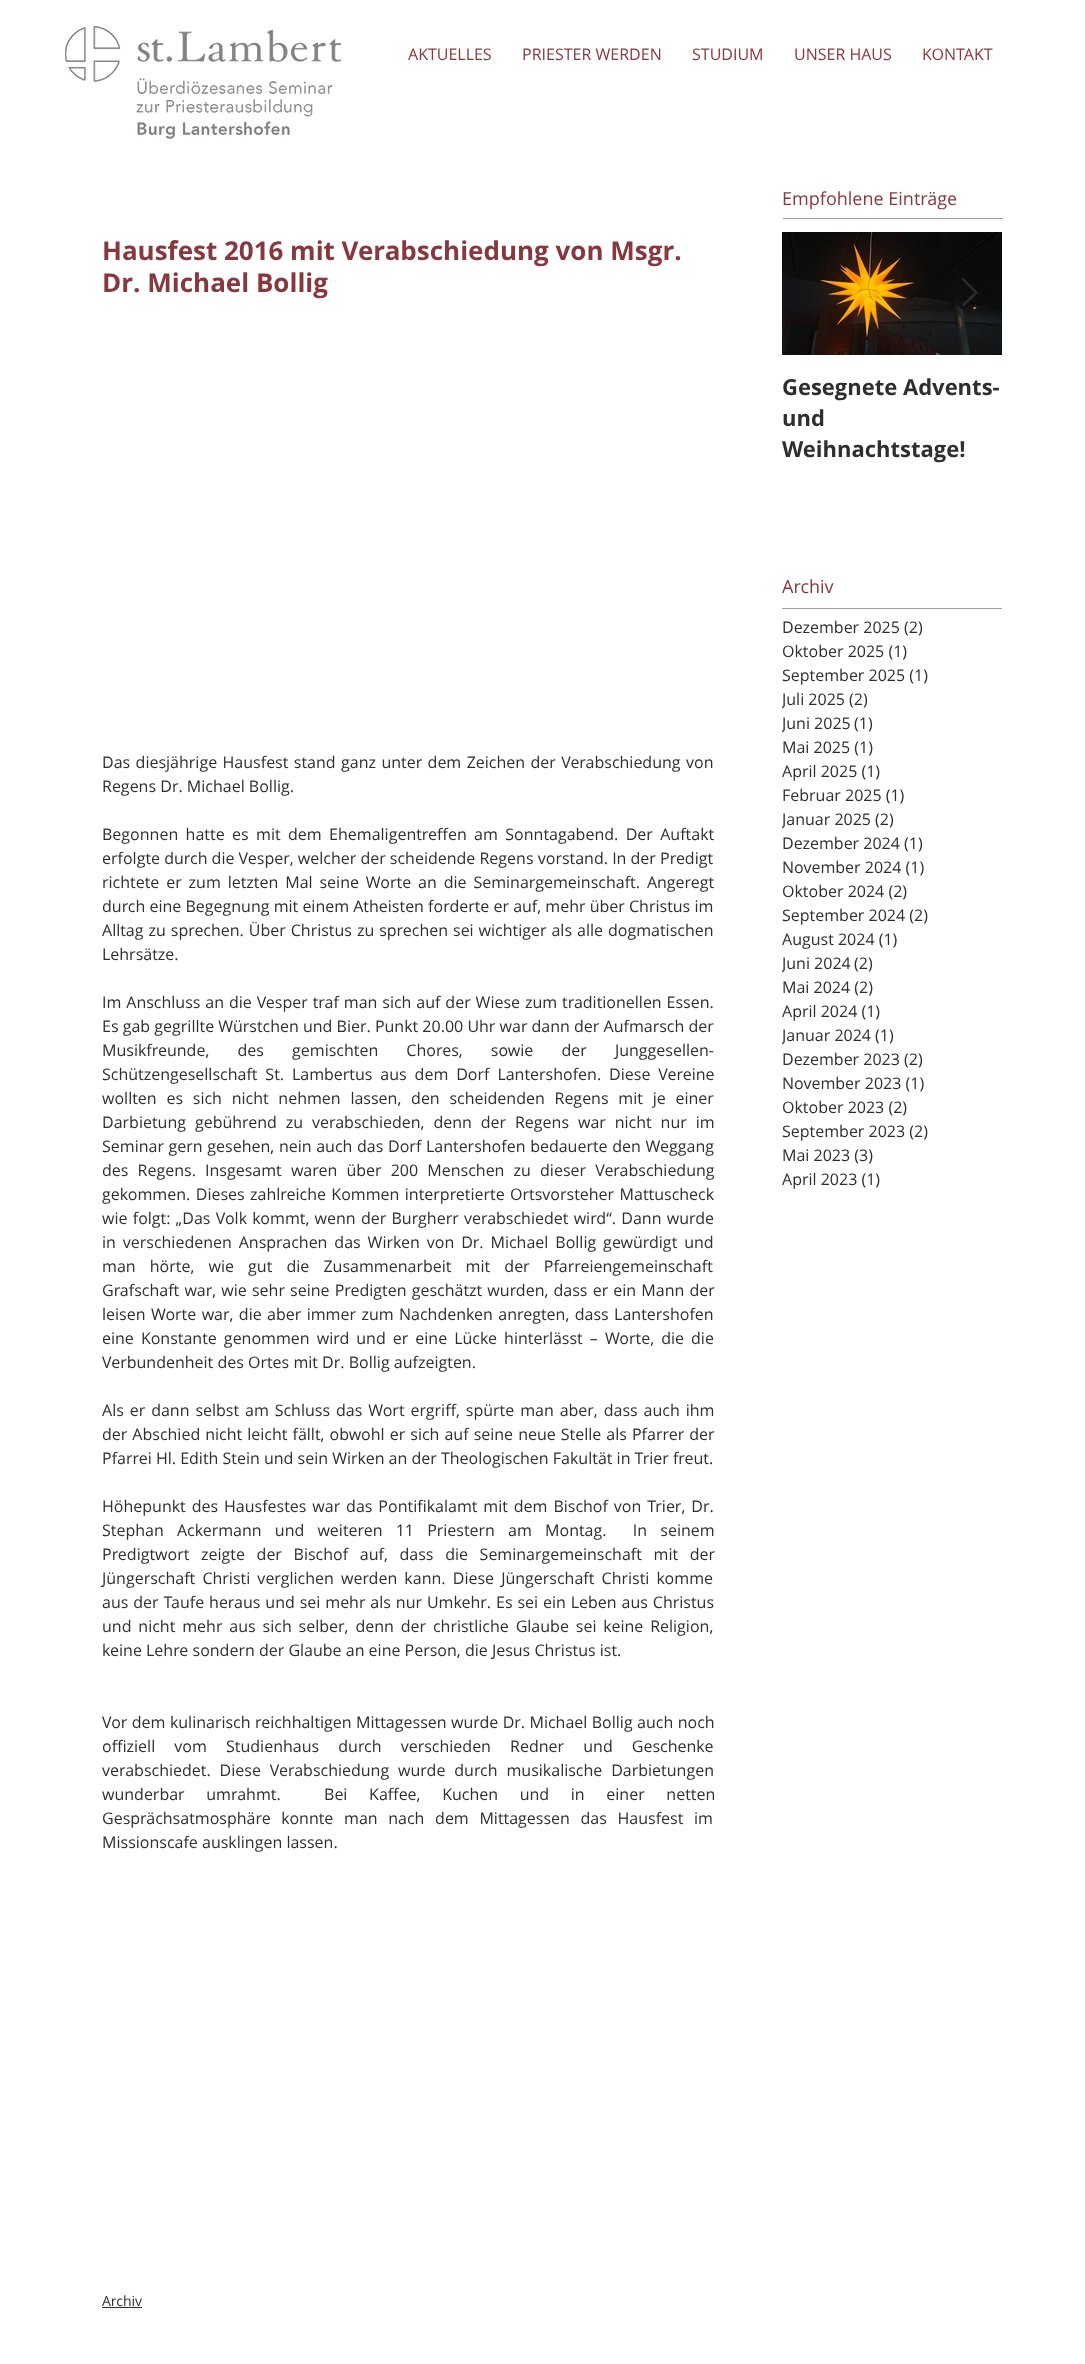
<svg xmlns="http://www.w3.org/2000/svg" width="1085" height="2364">
	<defs>
		<clipPath id="clip1"><rect x="782" y="687" width="85" height="24" /></clipPath>
		<clipPath id="clip2"><rect x="782" y="711" width="91" height="24" /></clipPath>
		<clipPath id="clip3"><rect x="782" y="807" width="111" height="24" /></clipPath>
		<clipPath id="clip4"><rect x="782" y="951" width="91" height="24" /></clipPath>
		<clipPath id="clip5"><rect x="782" y="1023" width="111" height="24" /></clipPath>
	</defs>
	<rect width="100%" height="100%" fill="#FFFFFF" />
	<image x="65" y="26" width="276" height="113" href="assets/img1.png" />
	<g font-family="Open Sans" font-size="16" fill="#87383E">
		<text x="408" y="60">AKTUELLES</text>
		<text x="522" y="60">PRIESTER WERDEN</text>
		<text x="692" y="60">STUDIUM</text>
		<text x="794" y="60">UNSER HAUS</text>
		<text x="922" y="60">KONTAKT</text>
	</g>
	<text x="782" y="205" font-family="Open Sans" font-size="18" fill="#87383E">Empfohlene Einträge</text>
	<rect x="783" y="218" width="220" height="1" fill="#A0A09F" />
	<g font-family="Open Sans" font-size="26" font-weight="700" fill="#87383E">
		<text x="102" y="260">Hausfest 2016 mit Verabschiedung von Msgr.</text>
		<text x="102" y="292">Dr. Michael Bollig</text>
	</g>
	<g font-family="Open Sans" font-size="16" fill="#2F2E2E">
		<text x="102" y="768" word-spacing="1.25">Das diesjährige Hausfest stand ganz unter dem Zeichen der Verabschiedung von</text>
		<text x="102" y="792">Regens Dr. Michael Bollig.</text>
		<text x="102" y="840" word-spacing="3.25">Begonnen hatte es mit dem Ehemaligentreffen am Sonntagabend. Der Auftakt</text>
		<text x="102" y="864">erfolgte durch die Vesper, welcher der scheidende Regens vorstand. In der Predigt</text>
		<text x="102" y="888" word-spacing="2.75">richtete er zum letzten Mal seine Worte an die Seminargemeinschaft. Angeregt</text>
		<text x="102" y="912">durch eine Begegnung mit einem Atheisten forderte er auf, mehr über Christus im</text>
		<text x="102" y="936" word-spacing="0.8">Alltag zu sprechen. Über Christus zu sprechen sei wichtiger als alle dogmatischen</text>
		<text x="102" y="960">Lehrsätze.</text>
		<text x="102" y="1008" word-spacing="0.75">Im Anschluss an die Vesper traf man sich auf der Wiese zum traditionellen Essen.</text>
		<text x="102" y="1032">Es gab gegrillte Würstchen und Bier. Punkt 20.00 Uhr war dann der Aufmarsch der</text>
		<text x="102" y="1056" word-spacing="24">Musikfreunde, des gemischten Chores, sowie der Junggesellen-</text>
		<text x="102" y="1080" word-spacing="3.75">Schützengesellschaft St. Lambertus aus dem Dorf Lantershofen. Diese Vereine</text>
		<text x="102" y="1104" word-spacing="5.6">wollten es sich nicht nehmen lassen, den scheidenden Regens mit je einer</text>
		<text x="102" y="1128" word-spacing="4.75">Darbietung gebührend zu verabschieden, denn der Regens war nicht nur im</text>
		<text x="102" y="1152" word-spacing="0.5">Seminar gern gesehen, nein auch das Dorf Lantershofen bedauerte den Weggang</text>
		<text x="102" y="1176" word-spacing="5">des Regens. Insgesamt waren über 200 Menschen zu dieser Verabschiedung</text>
		<text x="102" y="1200" word-spacing="1.25">gekommen. Dieses zahlreiche Kommen interpretierte Ortsvorsteher Mattuscheck</text>
		<text x="102" y="1224" word-spacing="1.1">wie folgt: „Das Volk kommt, wenn der Burgherr verabschiedet wird“. Dann wurde</text>
		<text x="102" y="1248" word-spacing="2.75">in verschiedenen Ansprachen das Wirken von Dr. Michael Bollig gewürdigt und</text>
		<text x="102" y="1272" word-spacing="10">man hörte, wie gut die Zusammenarbeit mit der Pfarreiengemeinschaft</text>
		<text x="102" y="1296" word-spacing="1">Grafschaft war, wie sehr seine Predigten geschätzt wurden, dass er ein Mann der</text>
		<text x="102" y="1320" word-spacing="1.25">leisen Worte war, die aber immer zum Nachdenken anregten, dass Lantershofen</text>
		<text x="102" y="1344" word-spacing="2.9">eine Konstante genommen wird und er eine Lücke hinterlässt – Worte, die die</text>
		<text x="102" y="1368">Verbundenheit des Ortes mit Dr. Bollig aufzeigten.</text>
		<text x="102" y="1416" word-spacing="1.75">Als er dann selbst am Schluss das Wort ergriff, spürte man aber, dass auch ihm</text>
		<text x="102" y="1440" word-spacing="0.9">der Abschied nicht leicht fällt, obwohl er sich auf seine neue Stelle als Pfarrer der</text>
		<text x="102" y="1464">Pfarrei Hl. Edith Stein und sein Wirken an der Theologischen Fakultät in Trier freut.</text>
		<text x="102" y="1512" word-spacing="1.75">Höhepunkt des Hausfestes war das Pontifikalamt mit dem Bischof von Trier, Dr.</text>
		<text x="102" y="1536" word-spacing="9" xml:space="preserve">Stephan Ackermann und weiteren 11 Priestern am Montag.  In seinem</text>
		<text x="102" y="1560" word-spacing="7.5">Predigtwort zeigte der Bischof auf, dass die Seminargemeinschaft mit der</text>
		<text x="102" y="1584" word-spacing="3">Jüngerschaft Christi verglichen werden kann. Diese Jüngerschaft Christi komme</text>
		<text x="102" y="1608" word-spacing="0.75">aus der Taufe heraus und sei mehr als nur Umkehr. Es sei ein Leben aus Christus</text>
		<text x="102" y="1632" word-spacing="2.75">und nicht mehr aus sich selber, denn der christliche Glaube sei keine Religion,</text>
		<text x="102" y="1656">keine Lehre sondern der Glaube an eine Person, die Jesus Christus ist.</text>
		<text x="102" y="1728" word-spacing="0.25">Vor dem kulinarisch reichhaltigen Mittagessen wurde Dr. Michael Bollig auch noch</text>
		<text x="102" y="1752" word-spacing="15">offiziell vom Studienhaus durch verschieden Redner und Geschenke</text>
		<text x="102" y="1776" word-spacing="4.75">verabschiedet. Diese Verabschiedung wurde durch musikalische Darbietungen</text>
		<text x="102" y="1800" word-spacing="17.5" xml:space="preserve">wunderbar umrahmt.  Bei Kaffee, Kuchen und in einer netten</text>
		<text x="102" y="1824" word-spacing="6.5">Gesprächsatmosphäre konnte man nach dem Mittagessen das Hausfest im</text>
		<text x="102" y="1848">Missionscafe ausklingen lassen.</text>
	</g>
	<text x="102" y="2306" font-family="Open Sans" font-size="14" fill="#2F2E2E">Archiv</text>
	<rect x="102" y="2307" width="40" height="1" fill="#2F2E2E" />
	<image x="782" y="232" width="220" height="123" href="assets/img3.png" />
	<image x="961" y="278" width="17" height="29" href="assets/img2.png" />
	<g font-family="Open Sans" font-size="22" font-weight="700" fill="#2F2E2E">
		<text x="782" y="395">Gesegnete Advents-</text>
		<text x="782" y="426">und</text>
		<text x="782" y="457">Weihnachtstage!</text>
	</g>
	<text x="782" y="593" font-family="Open Sans" font-size="18" fill="#87383E">Archiv</text>
	<rect x="782" y="608" width="220" height="1" fill="#A0A09F" />
	<g font-family="Open Sans" font-size="16" fill="#2F2E2E">
		<text x="782" y="633">Dezember 2025 (2)</text>
		<text x="782" y="657">Oktober 2025 (1)</text>
		<text x="782" y="681">September 2025 (1)</text>
	</g>
	<g clip-path="url(#clip1)">
		<text x="782" y="705" font-family="Open Sans" font-size="16" fill="#2F2E2E">Juli 2025</text>
	</g>
	<text x="849" y="705" font-family="Open Sans" font-size="16" fill="#2F2E2E">(2)</text>
	<g clip-path="url(#clip2)">
		<text x="782" y="729" font-family="Open Sans" font-size="16" fill="#2F2E2E">Juni 2025</text>
	</g>
	<g font-family="Open Sans" font-size="16" fill="#2F2E2E">
		<text x="854" y="729">(1)</text>
		<text x="782" y="753">Mai 2025 (1)</text>
		<text x="782" y="777">April 2025 (1)</text>
		<text x="782" y="801">Februar 2025 (1)</text>
	</g>
	<g clip-path="url(#clip3)">
		<text x="782" y="825" font-family="Open Sans" font-size="16" fill="#2F2E2E">Januar 2025</text>
	</g>
	<g font-family="Open Sans" font-size="16" fill="#2F2E2E">
		<text x="875" y="825">(2)</text>
		<text x="782" y="849">Dezember 2024 (1)</text>
		<text x="782" y="873">November 2024 (1)</text>
		<text x="782" y="897">Oktober 2024 (2)</text>
		<text x="782" y="921">September 2024 (2)</text>
		<text x="782" y="945">August 2024 (1)</text>
	</g>
	<g clip-path="url(#clip4)">
		<text x="782" y="969" font-family="Open Sans" font-size="16" fill="#2F2E2E">Juni 2024</text>
	</g>
	<g font-family="Open Sans" font-size="16" fill="#2F2E2E">
		<text x="854" y="969">(2)</text>
		<text x="782" y="993">Mai 2024 (2)</text>
		<text x="782" y="1017">April 2024 (1)</text>
	</g>
	<g clip-path="url(#clip5)">
		<text x="782" y="1041" font-family="Open Sans" font-size="16" fill="#2F2E2E">Januar 2024</text>
	</g>
	<g font-family="Open Sans" font-size="16" fill="#2F2E2E">
		<text x="875" y="1041">(1)</text>
		<text x="782" y="1065">Dezember 2023 (2)</text>
		<text x="782" y="1089">November 2023 (1)</text>
		<text x="782" y="1113">Oktober 2023 (2)</text>
		<text x="782" y="1137">September 2023 (2)</text>
		<text x="782" y="1161">Mai 2023 (3)</text>
		<text x="782" y="1185">April 2023 (1)</text>
	</g>
</svg>
